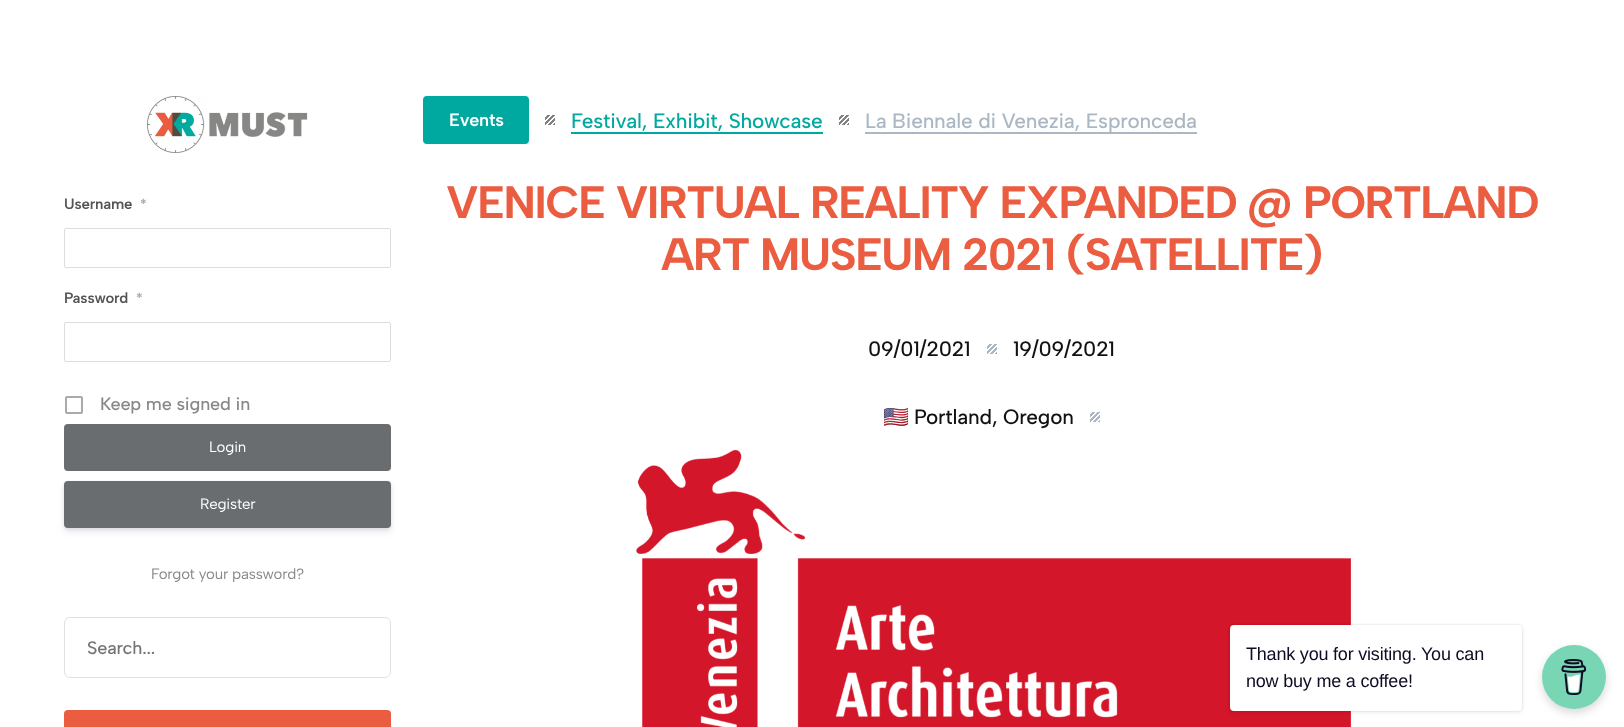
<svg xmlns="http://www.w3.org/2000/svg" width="1624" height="727">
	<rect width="100%" height="100%" fill="#FFFFFF" />
	<image x="147" y="96" width="161" height="57" href="assets/img1.png" />
	<text x="64" y="209" font-family="Albert Sans" font-size="15" font-weight="600" letter-spacing="-0.2" fill="#555555">Username</text>
	<text x="140" y="209" font-family="Albert Sans" font-size="14" font-weight="600" letter-spacing="-0.2" fill="#AAAAAA">*</text>
	<rect x="64.5" y="228.5" width="326" height="39" rx="1.5" fill="none" stroke="#DDDDDD" />
	<text x="64" y="303" font-family="Albert Sans" font-size="15" font-weight="600" letter-spacing="-0.2" fill="#555555">Password</text>
	<text x="136" y="303" font-family="Albert Sans" font-size="14" font-weight="600" letter-spacing="-0.2" fill="#AAAAAA">*</text>
	<rect x="64.5" y="322.5" width="326" height="39" rx="1.5" fill="none" stroke="#DDDDDD" />
	<image x="65" y="396" width="18" height="18" href="assets/img2.png" />
	<text x="100" y="410" font-family="Albert Sans" font-size="18" font-weight="500" letter-spacing="-0.2" fill="#888888">Keep me signed in</text>
	<rect x="64" y="424" width="327" height="47" rx="4" fill="#696D70" />
	<text x="209" y="452" font-family="Albert Sans" font-size="15" letter-spacing="-0.2" fill="#FFFFFF">Login</text>
	<rect x="64" y="482" width="327" height="47" rx="4" fill="#000000" fill-opacity="0.08" filter="blur(1.5px)" />
	<rect x="64" y="485" width="327" height="47" rx="4" fill="#32325D" fill-opacity="0.11" filter="blur(3px)" />
	<rect x="64" y="481" width="327" height="47" rx="4" fill="#696D70" />
	<text x="200" y="509" font-family="Albert Sans" font-size="15" letter-spacing="-0.2" fill="#FFFFFF">Register</text>
	<text x="151" y="579" font-family="Albert Sans" font-size="15" letter-spacing="-0.2" fill="#888888">Forgot your password?</text>
	<rect x="64.5" y="617.5" width="326" height="60" rx="5.5" fill="none" stroke="#E2E2E2" />
	<text x="87" y="654" font-family="Albert Sans" font-size="18" font-weight="500" letter-spacing="-0.2" fill="#757575">Search...</text>
	<rect x="64" y="710" width="327" height="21" rx="4" fill="#EB5D40" />
	<rect x="423" y="96" width="106" height="48" rx="4" fill="#00A99F" />
	<text x="449" y="126" font-family="Albert Sans" font-size="18" font-weight="600" letter-spacing="-0.2" fill="#FFFFFF">Events</text>
	<image x="545" y="115" width="10" height="10" href="assets/img3.png" />
	<text x="571" y="128" font-family="Albert Sans" font-size="20.8" font-weight="500" letter-spacing="-0.2" fill="#00A99F">Festival, Exhibit, Showcase</text>
	<rect x="571" y="132" width="252" height="2" fill="#00A99F" />
	<image x="839" y="115" width="10" height="10" href="assets/img3.png" />
	<rect x="865" y="132" width="332" height="2" fill="#ABB8C3" />
	<text x="865" y="128" font-family="Albert Sans" font-size="20.8" font-weight="500" letter-spacing="-0.2" fill="#ABB8C3">La Biennale di Venezia, Espronceda</text>
	<g font-family="Albert Sans" font-size="45.25" font-weight="700" letter-spacing="-1.35" fill="#EB5D40">
		<text x="446" y="218">VENICE VIRTUAL REALITY EXPANDED @ PORTLAND</text>
		<text x="661" y="270">ART MUSEUM 2021 (SATELLITE)</text>
	</g>
	<text x="868" y="356" font-family="Albert Sans" font-size="20.8" font-weight="500" letter-spacing="-0.2" fill="#111111">09/01/2021</text>
	<image x="987" y="344" width="10" height="10" href="assets/img4.png" />
	<text x="1013" y="356" font-family="Albert Sans" font-size="20.8" font-weight="500" letter-spacing="-0.2" fill="#111111">19/09/2021</text>
	<text x="883" y="424" font-family="Noto Color Emoji" font-size="20.8" letter-spacing="-0.2" fill="#111111">🇺🇸</text>
	<text x="914" y="424" font-family="Albert Sans" font-size="20.8" font-weight="500" letter-spacing="-0.2" fill="#111111">Portland, Oregon</text>
	<image x="1090" y="412" width="10" height="10" href="assets/img4.png" />
	<image x="636" y="449" width="715" height="278" href="assets/img5.png" />
	<rect x="1230" y="625" width="292" height="86" rx="4" fill="#000000" fill-opacity="0.15" filter="blur(1px)" />
	<rect x="1230" y="627" width="292" height="86" rx="4" fill="#000000" fill-opacity="0.05" filter="blur(2.5px)" />
	<rect x="1230" y="625" width="292" height="86" rx="4" fill="#FFFFFF" />
	<g font-family="Liberation Sans" font-size="18" letter-spacing="-0.2" fill="#0D0C22">
		<text x="1246" y="660">Thank you for visiting. You can</text>
		<text x="1246" y="687">now buy me a coffee!</text>
	</g>
	<rect x="1542" y="649" width="64" height="64" rx="32" fill="#000000" fill-opacity="0.15" filter="blur(4px)" />
	<circle cx="1574" cy="677" r="32" fill="#79D6B5" />
	<image x="1561" y="659" width="26" height="36" href="assets/img6.png" />
</svg>
